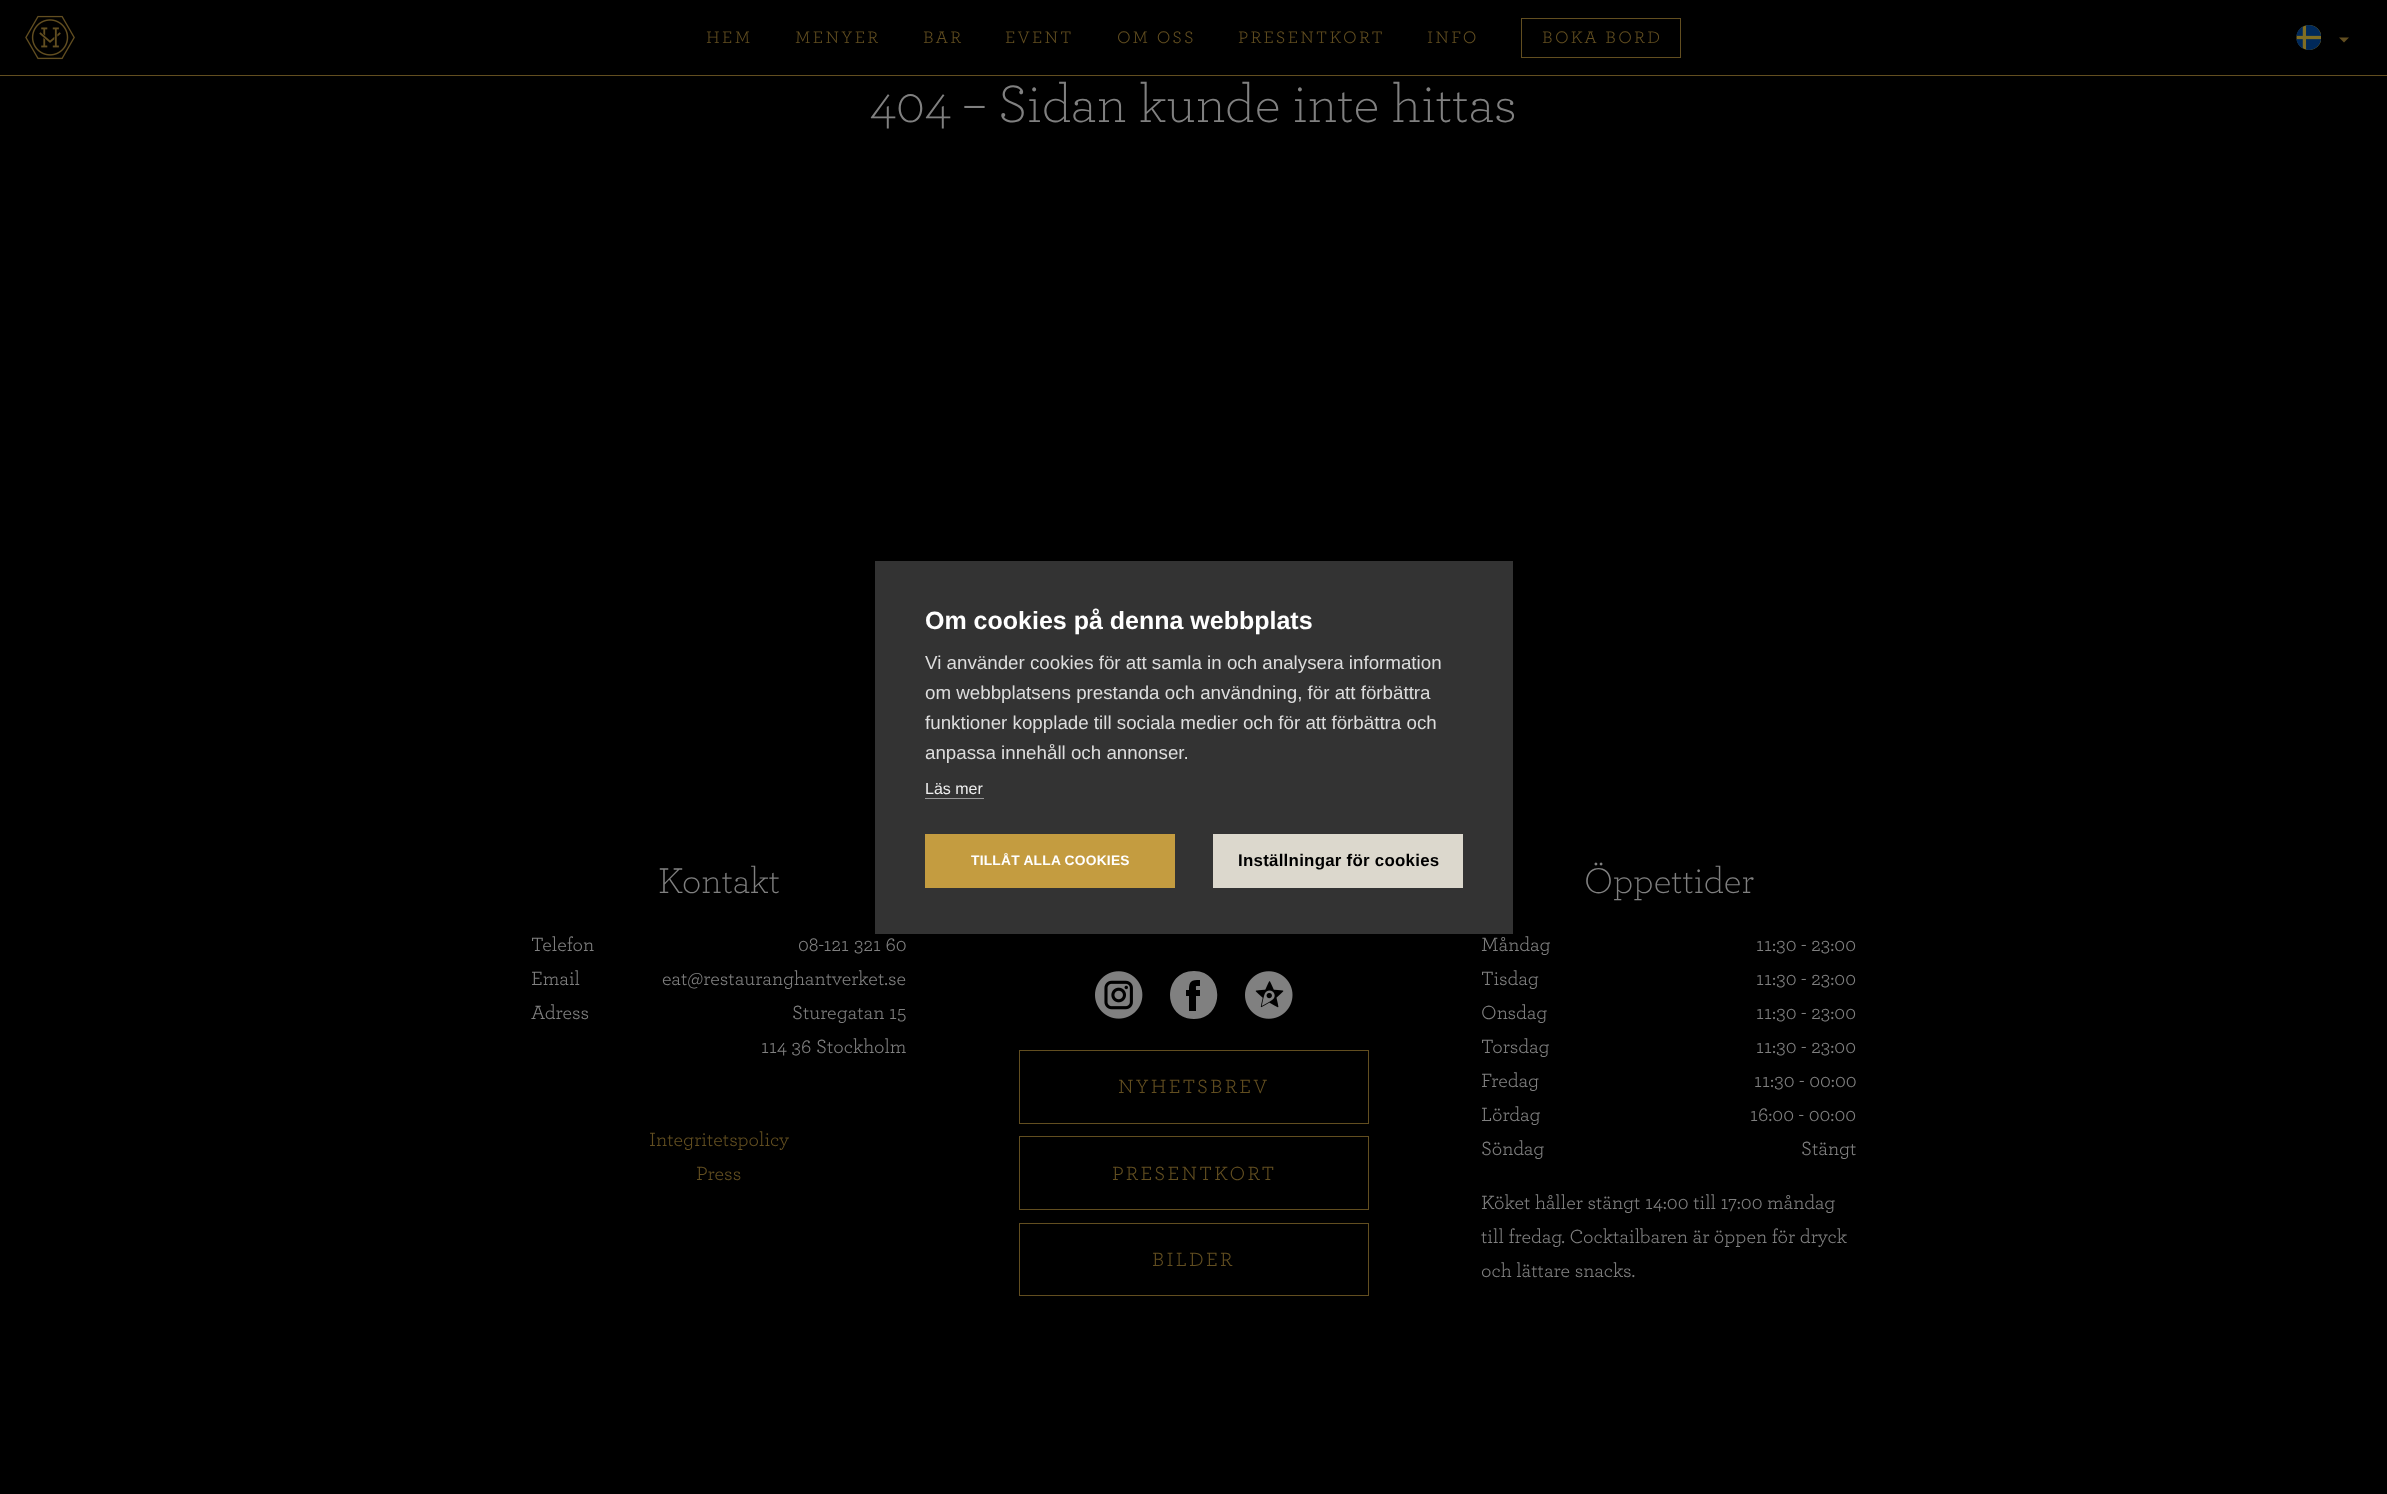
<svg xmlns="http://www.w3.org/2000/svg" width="2387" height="1494">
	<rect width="100%" height="100%" fill="#000000" />
	<path d="M0 75V76H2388V1V75Z" fill="#624E20" />
	<image x="25" y="15" width="50" height="45" href="assets/img1.png" />
	<g font-family="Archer" font-size="17.5" letter-spacing="2.25" fill="#624E20">
		<text x="706" y="43">HEM</text>
		<text x="795" y="43">MENYER</text>
		<text x="923" y="43">BAR</text>
		<text x="1005" y="43">EVENT</text>
		<text x="1117" y="43">OM OSS</text>
		<text x="1238" y="43">PRESENTKORT</text>
		<text x="1427" y="43">INFO</text>
	</g>
	<rect x="1521.5" y="18.5" width="159" height="39" fill="none" stroke="#624E20" />
	<text x="1542" y="43" font-family="Archer" font-size="17.5" letter-spacing="2.25" fill="#624E20">BOKA BORD</text>
	<image x="2296" y="25" width="25" height="25" href="assets/img2.png" />
	<path d="M2339 37.5H2349L2344 42.5Z" fill="#624E20" />
	<text x="870" y="122" font-family="Archer" font-size="55" font-weight="300" fill="#808080">404 – Sidan kunde inte hittas</text>
	<text x="658" y="893" font-family="Archer" font-size="37.5" font-weight="300" fill="#808080">Kontakt</text>
	<g font-family="Archer" font-size="20" fill="#808080">
		<text x="531" y="951">Telefon</text>
		<text x="798" y="951">08-121 321 60</text>
		<text x="531" y="985">Email</text>
		<text x="662" y="985">eat@restauranghantverket.se</text>
		<text x="531" y="1019">Adress</text>
		<text x="792" y="1019">Sturegatan 15</text>
		<text x="761" y="1053">114 36 Stockholm</text>
	</g>
	<g font-family="Archer" font-size="20" fill="#624E20">
		<text x="649" y="1146">Integritetspolicy</text>
		<text x="696" y="1180">Press</text>
	</g>
	<image x="1095" y="971" width="48" height="48" href="assets/img3.png" />
	<path d="M1194 1019C1162 1019 1162 971 1194 971C1225 971 1225 1019 1194 1019ZM1200 996V990H1196C1196 985 1195 986 1200 986V980C1191 980 1189 981 1189 990H1186V996H1189V1011H1196V996Z" fill="#808080" />
	<image x="1245" y="971" width="48" height="48" href="assets/img4.png" />
	<rect x="1019.5" y="1050.5" width="349" height="73" fill="none" stroke="#624E20" />
	<text x="1118" y="1093" font-family="Archer" font-size="20" letter-spacing="2.25" fill="#624E20">NYHETSBREV</text>
	<rect x="1019.5" y="1136.5" width="349" height="73" fill="none" stroke="#624E20" />
	<text x="1112" y="1180" font-family="Archer" font-size="20" letter-spacing="2.25" fill="#624E20">PRESENTKORT</text>
	<rect x="1019.5" y="1223.5" width="349" height="72" fill="none" stroke="#624E20" />
	<text x="1152" y="1266" font-family="Archer" font-size="20" letter-spacing="2.25" fill="#624E20">BILDER</text>
	<text x="1584" y="893" font-family="Archer" font-size="37.5" font-weight="300" fill="#808080">Öppettider</text>
	<g font-family="Archer" font-size="20" fill="#808080">
		<text x="1481" y="951">Måndag</text>
		<text x="1756" y="951">11:30 - 23:00</text>
		<text x="1481" y="985">Tisdag</text>
		<text x="1756" y="985">11:30 - 23:00</text>
		<text x="1481" y="1019">Onsdag</text>
		<text x="1756" y="1019">11:30 - 23:00</text>
		<text x="1481" y="1053">Torsdag</text>
		<text x="1756" y="1053">11:30 - 23:00</text>
		<text x="1481" y="1087">Fredag</text>
		<text x="1754" y="1087">11:30 - 00:00</text>
		<text x="1481" y="1121">Lördag</text>
		<text x="1750" y="1121">16:00 - 00:00</text>
		<text x="1481" y="1155">Söndag</text>
		<text x="1801" y="1155">Stängt</text>
		<text x="1481" y="1209">Köket håller stängt 14:00 till 17:00 måndag</text>
		<text x="1481" y="1243">till fredag. Cocktailbaren är öppen för dryck</text>
		<text x="1481" y="1277">och lättare snacks.</text>
	</g>
	<rect x="875" y="561" width="638" height="373" fill="#333333" />
	<text x="925" y="629" font-family="Liberation Sans" font-size="25" font-weight="700" fill="#FFFFFF">Om cookies på denna webbplats</text>
	<g font-family="Liberation Sans" font-size="18.75" fill="#DDDDDD">
		<text x="925" y="669">Vi använder cookies för att samla in och analysera information</text>
		<text x="925" y="699">om webbplatsens prestanda och användning, för att förbättra</text>
		<text x="925" y="729">funktioner kopplade till sociala medier och för att förbättra och</text>
		<text x="925" y="759">anpassa innehåll och annonser.</text>
	</g>
	<text x="925" y="794" font-family="Liberation Sans" font-size="16" fill="#EEEEEE">Läs mer</text>
	<rect x="925" y="798" width="59" height="1" fill="#999999" />
	<rect x="925" y="834" width="250" height="54" fill="#C49C40" />
	<text x="971" y="865" font-family="Liberation Sans" font-size="13.75" font-weight="700" letter-spacing="0.25" fill="#FFFFFF">TILLÅT ALLA COOKIES</text>
	<rect x="1213" y="834" width="250" height="54" fill="#DCD8CD" />
	<text x="1238" y="866" font-family="Liberation Sans" font-size="16.9" font-weight="700" letter-spacing="0.25" fill="#000000">Inställningar för cookies</text>
</svg>
